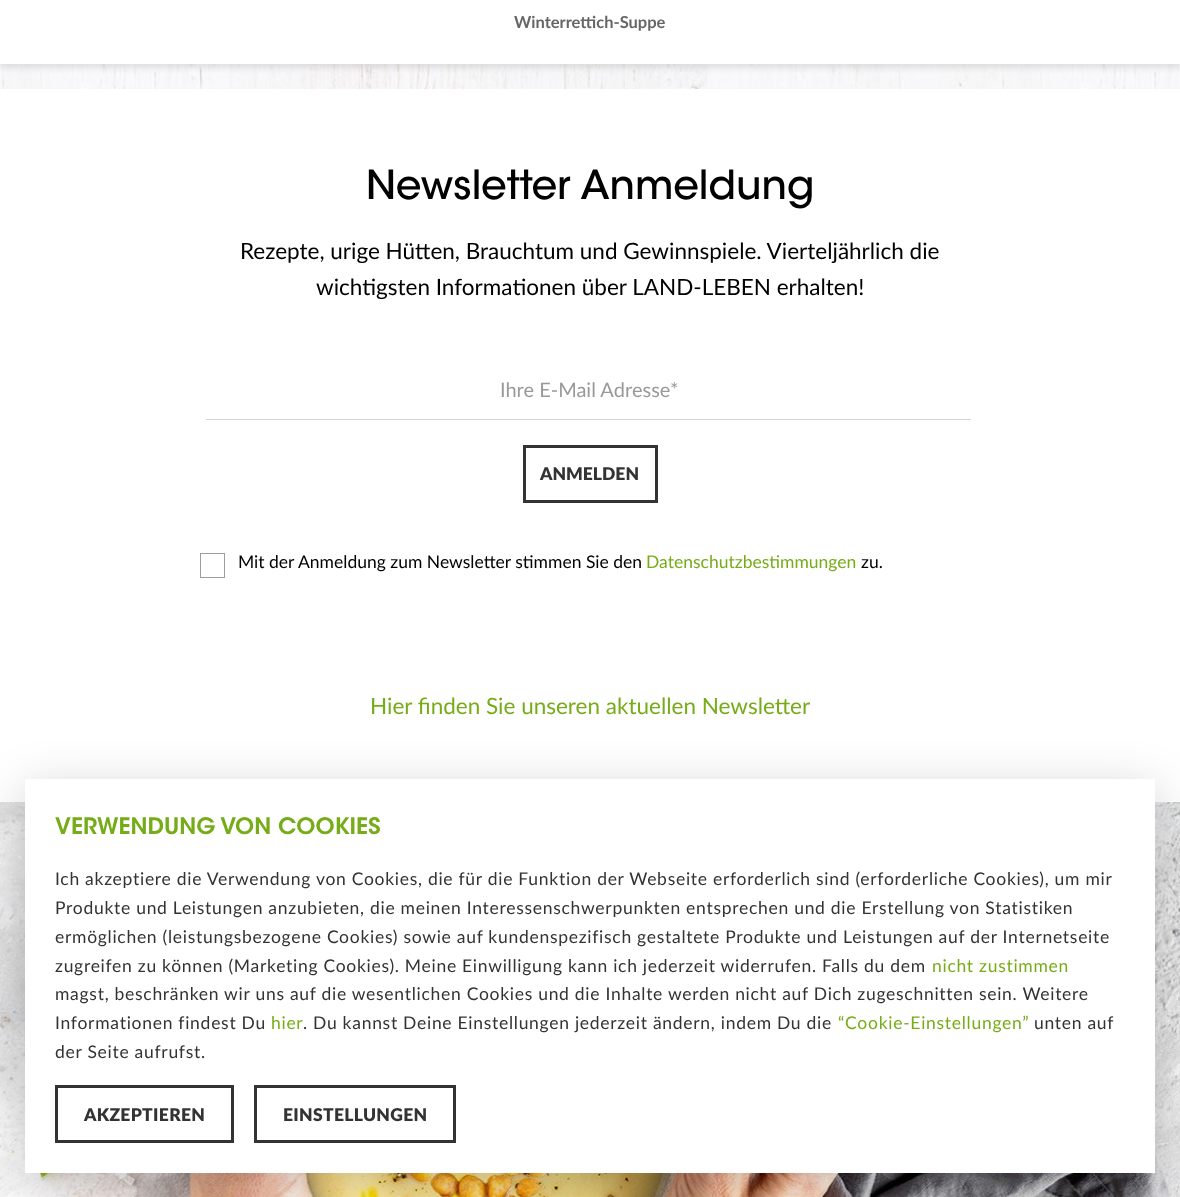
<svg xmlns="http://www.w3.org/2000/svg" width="1180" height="1197">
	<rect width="100%" height="100%" fill="#FFFFFF" />
	<image x="0" y="64" width="1180" height="25" href="assets/img1.png" />
	<rect x="0" y="-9" width="1180" height="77" fill="#000000" fill-opacity="0.1" filter="blur(3px)" />
	<rect x="0" y="0" width="1180" height="64" fill="#FFFFFF" />
	<text x="514" y="28" font-family="Lato" font-size="16.5" font-weight="700" fill="#666666">Winterrettich-Suppe</text>
	<text x="366" y="199" font-family="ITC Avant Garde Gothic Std" font-size="40" font-weight="500" fill="#000000">Newsletter Anmeldung</text>
	<g font-family="Lato" font-size="22.5" fill="#000000">
		<text x="240" y="259">Rezepte, urige Hütten, Brauchtum und Gewinnspiele. Vierteljährlich die</text>
		<text x="316" y="295">wichtigsten Informationen über LAND-LEBEN erhalten!</text>
	</g>
	<rect x="206" y="419" width="765" height="1" fill="#D3D3DC" />
	<text x="500" y="397" font-family="Lato" font-size="20" fill="#999999">Ihre E-Mail Adresse*</text>
	<rect x="524.5" y="446.5" width="132" height="55" fill="none" stroke="#333333" stroke-width="3" />
	<text x="540" y="480" font-family="Lato" font-size="17.5" font-weight="900" fill="#333333">ANMELDEN</text>
	<rect x="200.5" y="553.5" width="24" height="24" fill="none" stroke="#9D9D9D" />
	<text x="238" y="568" font-family="Lato" font-size="17.5" fill="#000000">Mit der Anmeldung zum Newsletter stimmen Sie den</text>
	<text x="646" y="568" font-family="Lato" font-size="17.5" fill="#77AC19">Datenschutzbestimmungen</text>
	<text x="861" y="568" font-family="Lato" font-size="17.5" fill="#000000">zu.</text>
	<text x="370" y="714" font-family="Lato" font-size="22.5" fill="#77AC19">Hier finden Sie unseren aktuellen Newsletter</text>
	<image x="0" y="802" width="1180" height="395" href="assets/img2.png" />
	<rect x="25" y="791" width="1130" height="394" fill="#000000" fill-opacity="0.2" filter="blur(25px)" />
	<rect x="25" y="779" width="1130" height="394" fill="#FFFFFF" />
	<text x="55" y="834" font-family="ITC Avant Garde Gothic Std" font-size="22.5" font-weight="600" fill="#77AC19">VERWENDUNG VON COOKIES</text>
	<g font-family="Lato" font-size="17.5" letter-spacing="0.72" fill="#333333">
		<text x="55" y="885">Ich akzeptiere die Verwendung von Cookies, die für die Funktion der Webseite erforderlich sind (erforderliche Cookies), um mir</text>
		<text x="55" y="914">Produkte und Leistungen anzubieten, die meinen Interessenschwerpunkten entsprechen und die Erstellung von Statistiken</text>
		<text x="55" y="943">ermöglichen (leistungsbezogene Cookies) sowie auf kundenspezifisch gestaltete Produkte und Leistungen auf der Internetseite</text>
		<text x="55" y="972">zugreifen zu können (Marketing Cookies). Meine Einwilligung kann ich jederzeit widerrufen. Falls du dem</text>
	</g>
	<text x="932" y="972" font-family="Lato" font-size="17.5" letter-spacing="0.72" fill="#77AC19">nicht zustimmen</text>
	<g font-family="Lato" font-size="17.5" letter-spacing="0.72" fill="#333333">
		<text x="55" y="1000">magst, beschränken wir uns auf die wesentlichen Cookies und die Inhalte werden nicht auf Dich zugeschnitten sein. Weitere</text>
		<text x="55" y="1029">Informationen findest Du</text>
	</g>
	<text x="271" y="1029" font-family="Lato" font-size="17.5" letter-spacing="0.72" fill="#77AC19">hier</text>
	<text x="303" y="1029" font-family="Lato" font-size="17.5" letter-spacing="0.72" fill="#333333">. Du kannst Deine Einstellungen jederzeit ändern, indem Du die</text>
	<text x="838" y="1029" font-family="Lato" font-size="17.5" letter-spacing="0.72" fill="#77AC19">“Cookie-Einstellungen”</text>
	<g font-family="Lato" font-size="17.5" letter-spacing="0.72" fill="#333333">
		<text x="1034" y="1029">unten auf</text>
		<text x="55" y="1058">der Seite aufrufst.</text>
	</g>
	<rect x="56.5" y="1086.5" width="176" height="55" fill="none" stroke="#333333" stroke-width="3" />
	<text x="84" y="1121" font-family="Lato" font-size="17.5" font-weight="900" letter-spacing="0.3" fill="#333333">AKZEPTIEREN</text>
	<rect x="255.5" y="1086.5" width="199" height="55" fill="none" stroke="#333333" stroke-width="3" />
	<text x="283" y="1121" font-family="Lato" font-size="17.5" font-weight="900" letter-spacing="0.3" fill="#333333">EINSTELLUNGEN</text>
</svg>
